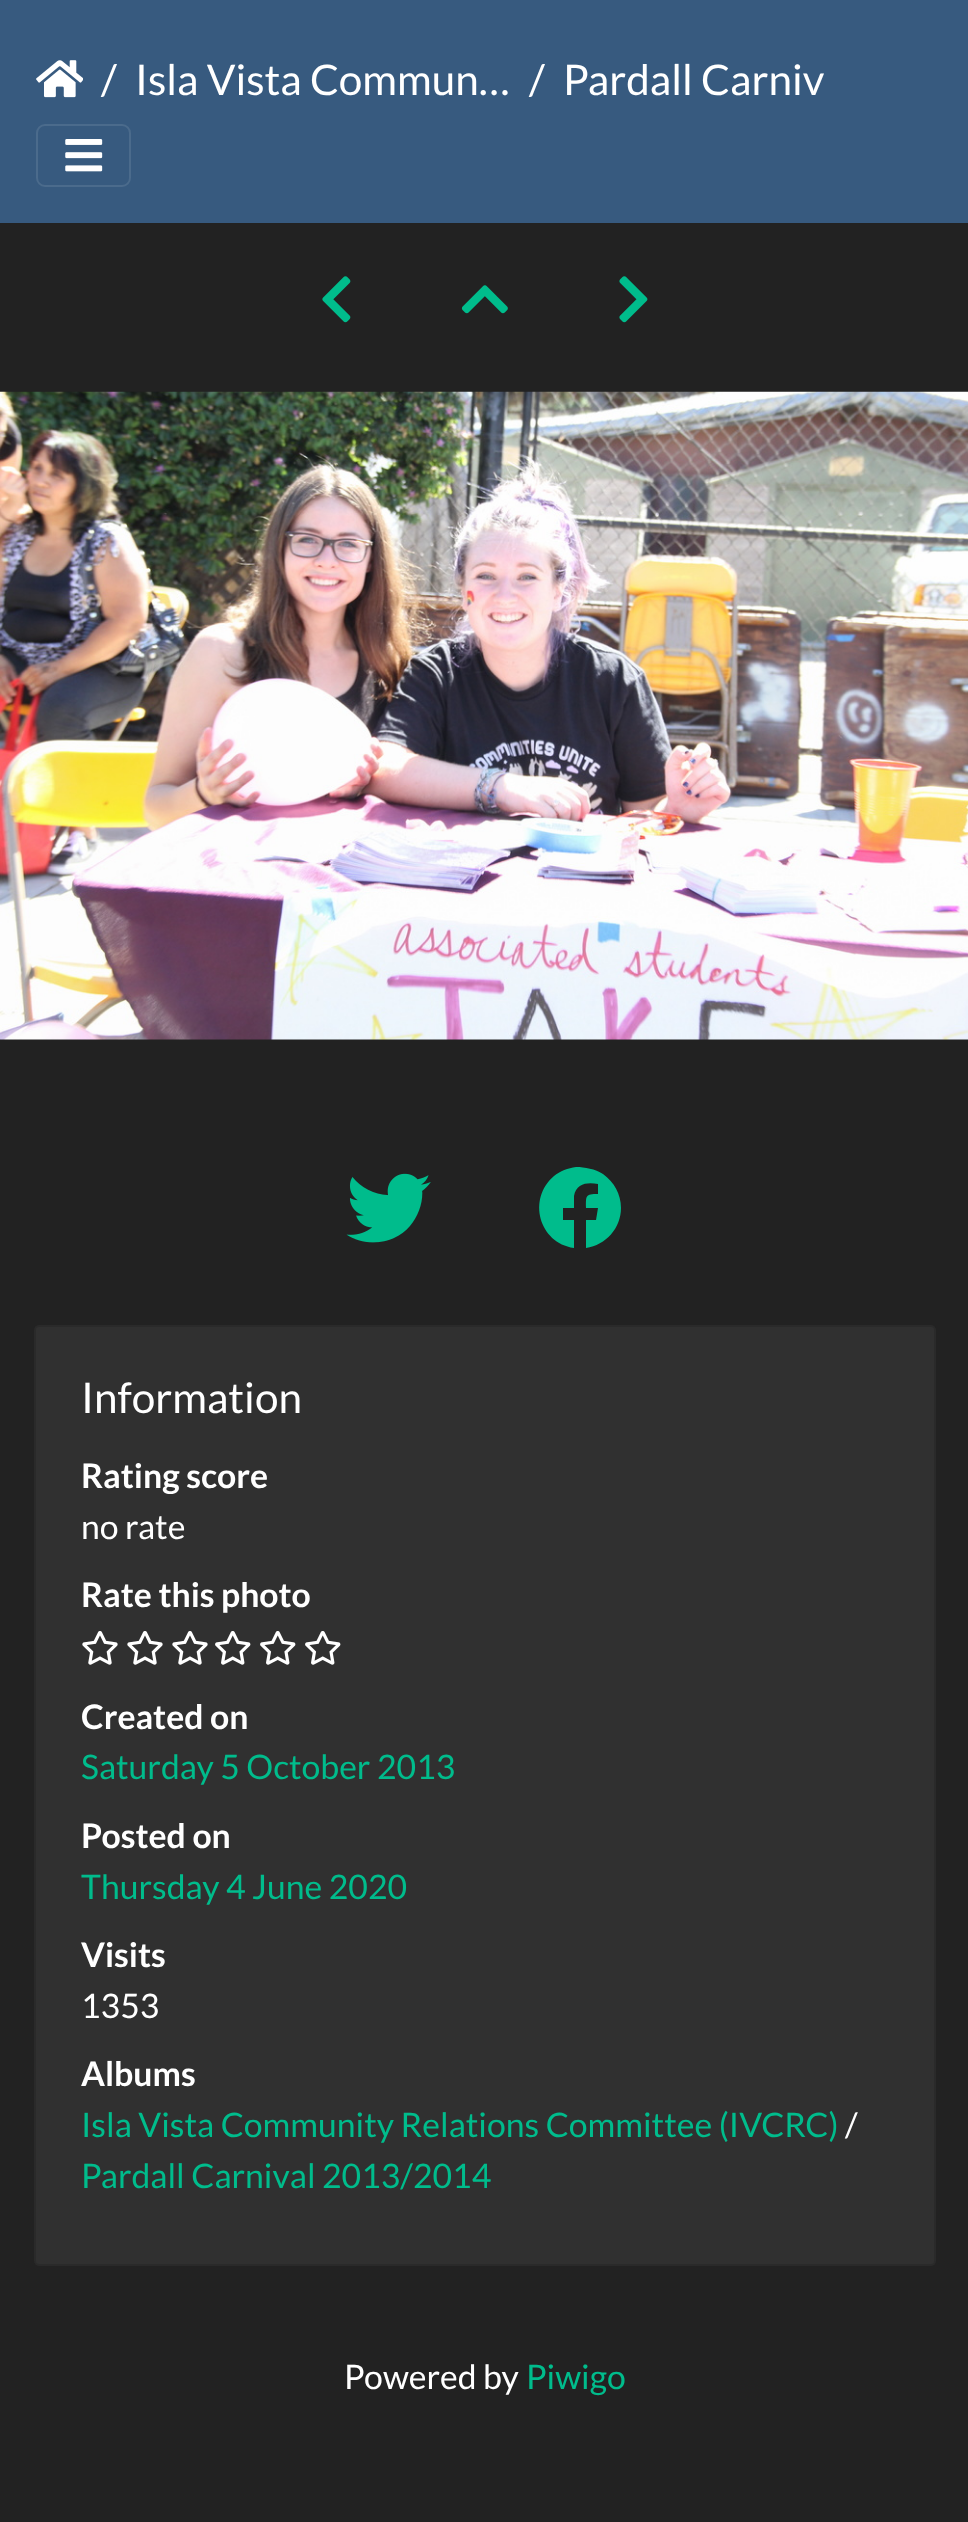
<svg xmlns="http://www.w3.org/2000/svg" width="968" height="2522">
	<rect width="100%" height="100%" fill="#222222" />
	<rect x="0" y="0" width="968" height="223" fill="#375A7F" />
	<image x="36" y="60" width="47" height="38" href="assets/img1.png" />
	<g font-family="Lato" font-size="42.25" fill="#FFFFFF">
		<text x="101" y="95">/</text>
		<text x="135" y="95">Isla Vista Commun…</text>
		<text x="529" y="95">/</text>
		<text x="563" y="95">Pardall Carniv</text>
	</g>
	<rect x="37" y="125" width="93" height="61" rx="8" fill="none" stroke="#4B6B8C" stroke-width="2" />
	<image x="65" y="139" width="38" height="33" href="assets/img2.png" />
	<image x="322" y="276" width="29" height="47" href="assets/img3.png" />
	<image x="461" y="285" width="47" height="29" href="assets/img4.png" />
	<image x="619" y="276" width="29" height="47" href="assets/img5.png" />
	<image x="0" y="391" width="968" height="649" href="assets/img6.png" />
	<image x="346" y="1173" width="85" height="70" href="assets/img7.png" />
	<path d="M621 1208C621 1228 606 1245 586 1248V1220H596L598 1208H586C586 1196 585 1194 598 1194V1184C588 1182 576 1183 574 1196V1208H563V1220H574V1248C539 1243 527 1199 554 1176C560 1171 568 1168 576 1167C585 1167 595 1169 603 1174C614 1182 621 1194 621 1208Z" fill="#00BC8C" />
	<rect x="34" y="1325" width="902" height="941" rx="5" fill="#303030" />
	<rect x="35" y="1326" width="900" height="939" rx="4" fill="none" stroke="#000000" stroke-opacity="0.12" stroke-width="2" />
	<text x="81" y="1413" font-family="Lato" font-size="42.25" fill="#FFFFFF">Information</text>
	<text x="81" y="1488" font-family="Lato" font-size="33.75" font-weight="700" fill="#FFFFFF">Rating score</text>
	<text x="81" y="1539" font-family="Lato" font-size="33.75" fill="#FFFFFF">no rate</text>
	<text x="81" y="1607" font-family="Lato" font-size="33.75" font-weight="700" fill="#FFFFFF">Rate this photo</text>
	<image x="82" y="1631" width="36" height="34" href="assets/img8.png" />
	<image x="127" y="1631" width="36" height="34" href="assets/img8.png" />
	<image x="172" y="1631" width="36" height="34" href="assets/img8.png" />
	<image x="215" y="1631" width="36" height="34" href="assets/img9.png" />
	<image x="260" y="1631" width="36" height="34" href="assets/img9.png" />
	<image x="305" y="1631" width="36" height="34" href="assets/img9.png" />
	<text x="81" y="1729" font-family="Lato" font-size="33.75" font-weight="700" fill="#FFFFFF">Created on</text>
	<text x="81" y="1779" font-family="Lato" font-size="33.75" fill="#00BC8C">Saturday 5 October 2013</text>
	<text x="81" y="1848" font-family="Lato" font-size="33.75" font-weight="700" fill="#FFFFFF">Posted on</text>
	<text x="81" y="1899" font-family="Lato" font-size="33.75" fill="#00BC8C">Thursday 4 June 2020</text>
	<text x="81" y="1967" font-family="Lato" font-size="33.75" font-weight="700" fill="#FFFFFF">Visits</text>
	<text x="81" y="2018" font-family="Lato" font-size="33.75" fill="#FFFFFF">1353</text>
	<text x="81" y="2086" font-family="Lato" font-size="33.75" font-weight="700" fill="#FFFFFF">Albums</text>
	<text x="81" y="2137" font-family="Lato" font-size="33.75" fill="#00BC8C">Isla Vista Community Relations Committee (IVCRC)</text>
	<text x="845" y="2137" font-family="Lato" font-size="33.75" fill="#FFFFFF">/</text>
	<text x="81" y="2188" font-family="Lato" font-size="33.75" fill="#00BC8C">Pardall Carnival 2013/2014</text>
	<text x="344" y="2389" font-family="Lato" font-size="33.75" fill="#FFFFFF">Powered by</text>
	<text x="526" y="2389" font-family="Lato" font-size="33.75" fill="#00BC8C">Piwigo</text>
</svg>
